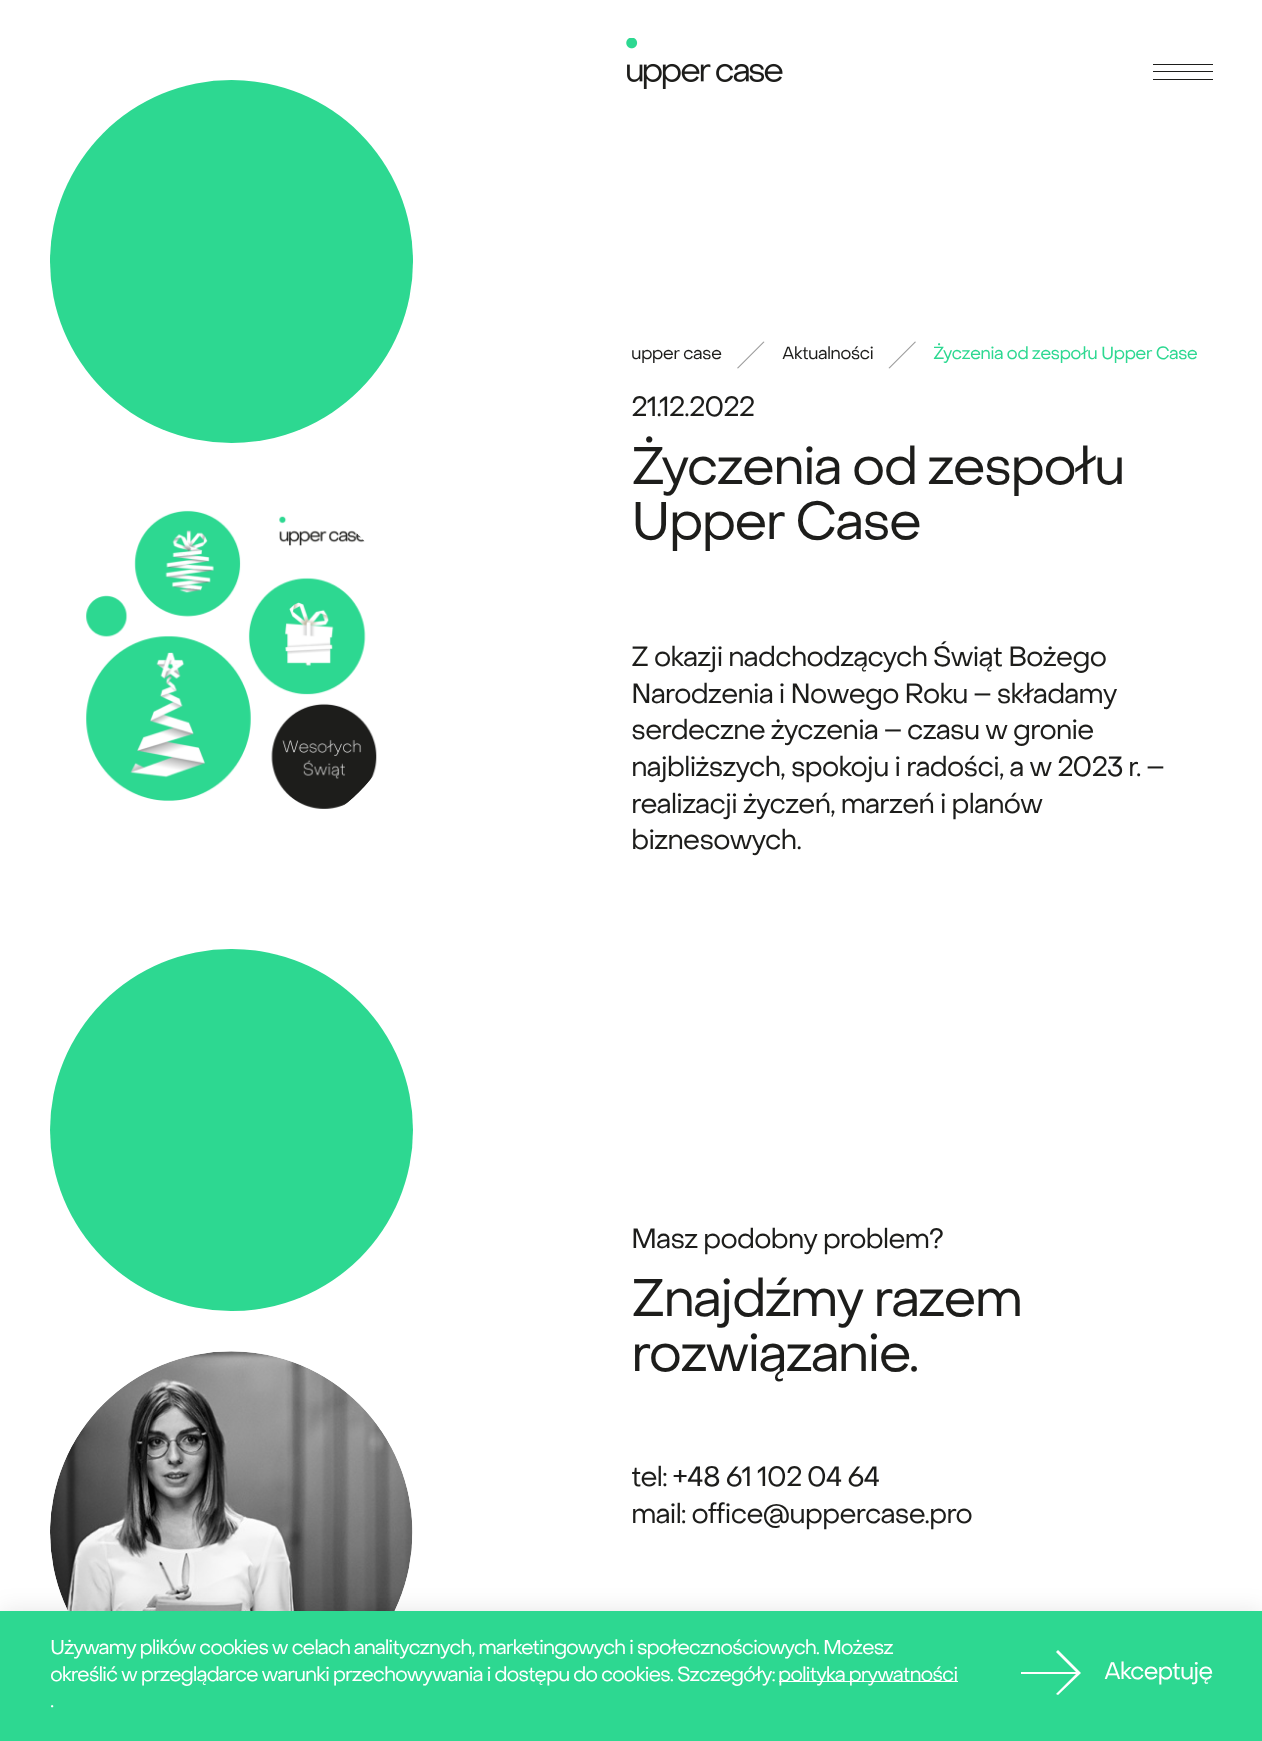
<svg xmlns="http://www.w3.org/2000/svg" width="1262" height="1741">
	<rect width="100%" height="100%" fill="#FFFFFF" />
	<image x="626" y="38" width="157" height="51" href="assets/img1.png" />
	<rect x="1153" y="64" width="60" height="1" fill="#1D1D1B" />
	<rect x="1153" y="71" width="60" height="1" fill="#1D1D1B" />
	<rect x="1153" y="79" width="60" height="1" fill="#1D1D1B" />
	<circle cx="231.5" cy="261.5" r="181.5" fill="#2DD891" />
	<image x="86" y="510" width="291" height="299" href="assets/img2.png" />
	<text x="631" y="359" font-family="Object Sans" font-size="17.5" letter-spacing="-0.7" fill="#1D1D1B">upper case</text>
	<path d="M763.5 341.5L764.5 342L738 368.5L737 368Z" fill="#9B9B9B" />
	<text x="782" y="359" font-family="Object Sans" font-size="17.5" letter-spacing="-0.7" fill="#1D1D1B">Aktualności</text>
	<path d="M915 341.5L916 342L889.5 368.5L888.5 368Z" fill="#9B9B9B" />
	<text x="933" y="359" font-family="Object Sans" font-size="17.5" letter-spacing="-0.7" fill="#2DD891">Życzenia od zespołu Upper Case</text>
	<text x="631" y="416" font-family="Object Sans" font-size="27.5" letter-spacing="-1.1" fill="#1D1D1B">21.12.2022</text>
	<g font-family="Object Sans" font-size="52.5" letter-spacing="-2.1" fill="#1D1D1B">
		<text x="631" y="484">Życzenia od zespołu</text>
		<text x="631" y="539">Upper Case</text>
	</g>
	<g font-family="Object Sans" font-size="27.5" letter-spacing="-1.1" fill="#1D1D1B">
		<text x="631" y="666">Z okazji nadchodzących Świąt Bożego</text>
		<text x="631" y="703">Narodzenia i Nowego Roku – składamy</text>
		<text x="631" y="739">serdeczne życzenia – czasu w gronie</text>
		<text x="631" y="776">najbliższych, spokoju i radości, a w 2023 r. –</text>
		<text x="631" y="813">realizacji życzeń, marzeń i planów</text>
		<text x="631" y="849">biznesowych.</text>
	</g>
	<rect x="50" y="949" width="363" height="362" rx="181" fill="#2DD891" />
	<image x="50" y="1351" width="363" height="260" href="assets/img3.png" />
	<text x="631" y="1248" font-family="Object Sans" font-size="27.5" letter-spacing="-1.1" fill="#1D1D1B">Masz podobny problem?</text>
	<g font-family="Object Sans" font-size="52.5" letter-spacing="-2.1" fill="#1D1D1B">
		<text x="631" y="1316">Znajdźmy razem</text>
		<text x="631" y="1371">rozwiązanie.</text>
	</g>
	<g font-family="Object Sans" font-size="27.5" letter-spacing="-1.1" fill="#1D1D1B">
		<text x="631" y="1486">tel: +48 61 102 04 64</text>
		<text x="631" y="1523">mail: office@uppercase.pro</text>
	</g>
	<rect x="0" y="1611" width="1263" height="130" fill="#000000" fill-opacity="0.1" filter="blur(12.5px)" />
	<rect x="0" y="1611" width="1262" height="130" fill="#2DD891" />
	<g font-family="Object Sans" font-size="20" letter-spacing="-1.1" fill="#FFFFFF">
		<text x="50" y="1654">Używamy plików cookies w celach analitycznych, marketingowych i społecznościowych. Możesz</text>
		<text x="50" y="1681">określić w przeglądarce warunki przechowywania i dostępu do cookies. Szczegóły:</text>
	</g>
	<rect x="779" y="1681" width="179" height="1" fill="#FFFFFF" />
	<g font-family="Object Sans" font-size="20" letter-spacing="-1.1" fill="#FFFFFF">
		<text x="778" y="1681">polityka prywatności</text>
		<text x="50" y="1707">.</text>
	</g>
	<path d="M1058 1650L1056 1652L1076 1672H1021V1674H1076L1056 1694L1058 1695L1081 1673Z" fill="#FFFFFF" />
	<text x="1104" y="1679" font-family="Object Sans" font-size="23.75" letter-spacing="-1.1" fill="#FFFFFF">Akceptuję</text>
</svg>
